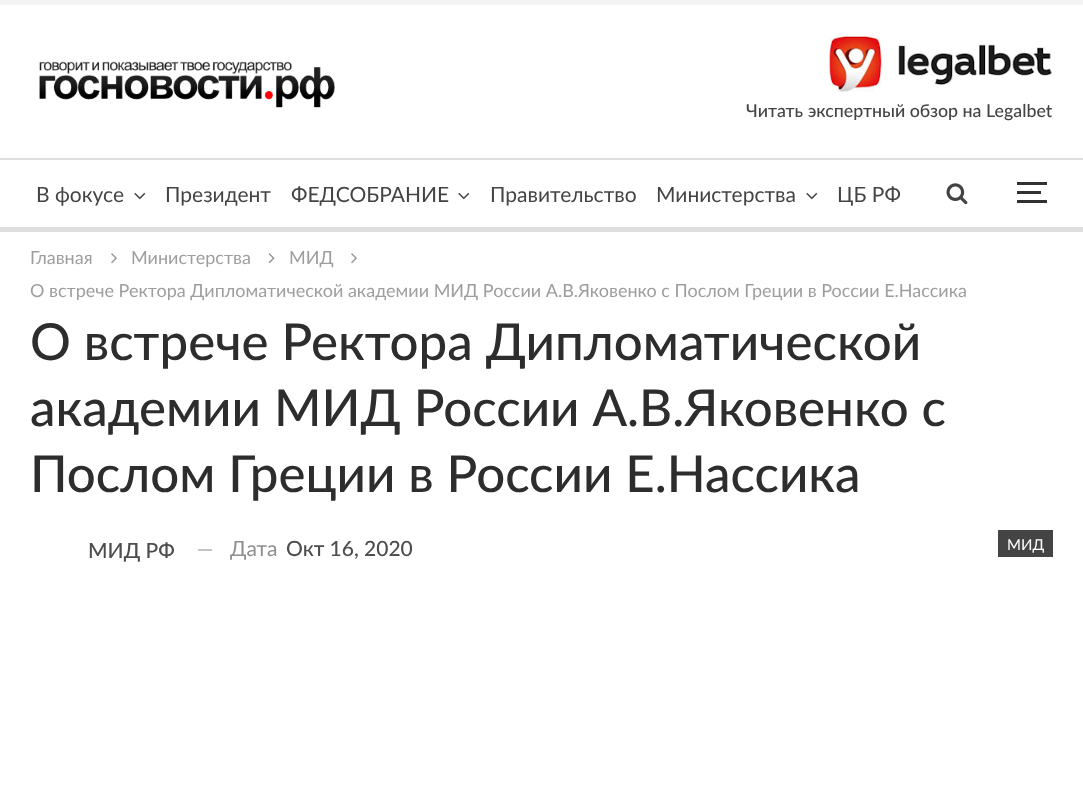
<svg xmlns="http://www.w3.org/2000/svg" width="1083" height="786">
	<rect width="100%" height="100%" fill="#F3F3F3" />
	<rect x="0" y="5" width="1083" height="781" fill="#FFFFFF" />
	<image x="39" y="61" width="296" height="47" href="assets/img1.png" />
	<image x="829" y="34" width="224" height="58" href="assets/img2.png" />
	<text x="746" y="117" font-family="Lato" font-size="17.8" font-weight="500" fill="#444444">Читать экспертный обзор на Legalbet</text>
	<rect x="0" y="158" width="1083" height="2" fill="#DEDEDE" />
	<rect x="0" y="227" width="1083" height="5" fill="#DEDEDE" />
	<text x="36" y="202" font-family="Lato" font-size="21" fill="#444444">В фокусе</text>
	<image x="134" y="192" width="12" height="8" href="assets/img3.png" />
	<g font-family="Lato" font-size="21" fill="#444444">
		<text x="165" y="202">Президент</text>
		<text x="291" y="202">ФЕДСОБРАНИЕ</text>
	</g>
	<image x="458" y="192" width="12" height="8" href="assets/img3.png" />
	<g font-family="Lato" font-size="21" fill="#444444">
		<text x="490" y="202">Правительство</text>
		<text x="656" y="202">Министерства</text>
	</g>
	<image x="806" y="192" width="12" height="8" href="assets/img3.png" />
	<text x="837" y="202" font-family="Lato" font-size="21" fill="#444444">ЦБ РФ</text>
	<image x="946" y="183" width="22" height="22" href="assets/img4.png" />
	<rect x="1017" y="191" width="24" height="3" fill="#313131" />
	<rect x="1017" y="182" width="30" height="3" fill="#313131" />
	<rect x="1017" y="200" width="30" height="3" fill="#313131" />
	<text x="30" y="264" font-family="Lato" font-size="18" fill="#9E9E9E">Главная</text>
	<image x="111" y="253" width="6" height="11" href="assets/img5.png" />
	<text x="131" y="264" font-family="Lato" font-size="18" fill="#9E9E9E">Министерства</text>
	<image x="268" y="253" width="7" height="11" href="assets/img6.png" />
	<text x="289" y="264" font-family="Lato" font-size="18" fill="#9E9E9E">МИД</text>
	<image x="351" y="253" width="6" height="11" href="assets/img5.png" />
	<text x="30" y="297" font-family="Lato" font-size="18" fill="#9E9E9E">О встрече Ректора Дипломатической академии МИД России А.В.Яковенко с Послом Греции в России Е.Нассика</text>
	<g font-family="Lato" font-size="51" font-weight="500" fill="#2D2D2D">
		<text x="30" y="360">О встрече Ректора Дипломатической</text>
		<text x="30" y="426">академии МИД России А.В.Яковенко с</text>
		<text x="30" y="492">Послом Греции в России Е.Нассика</text>
	</g>
	<text x="88" y="558" font-family="Lato" font-size="21" font-weight="500" fill="#4D4D4D">МИД РФ</text>
	<rect x="198" y="549" width="14" height="2" fill="#C4C4C4" />
	<text x="230" y="556" font-family="Lato" font-size="21" fill="#8F8F8F">Дата</text>
	<text x="286" y="556" font-family="Lato" font-size="21" font-weight="500" fill="#4D4D4D">Окт 16, 2020</text>
	<rect x="998" y="530" width="55" height="27" fill="#444444" />
	<text x="1007" y="550" font-family="Lato" font-size="15" fill="#FFFFFF">МИД</text>
</svg>
